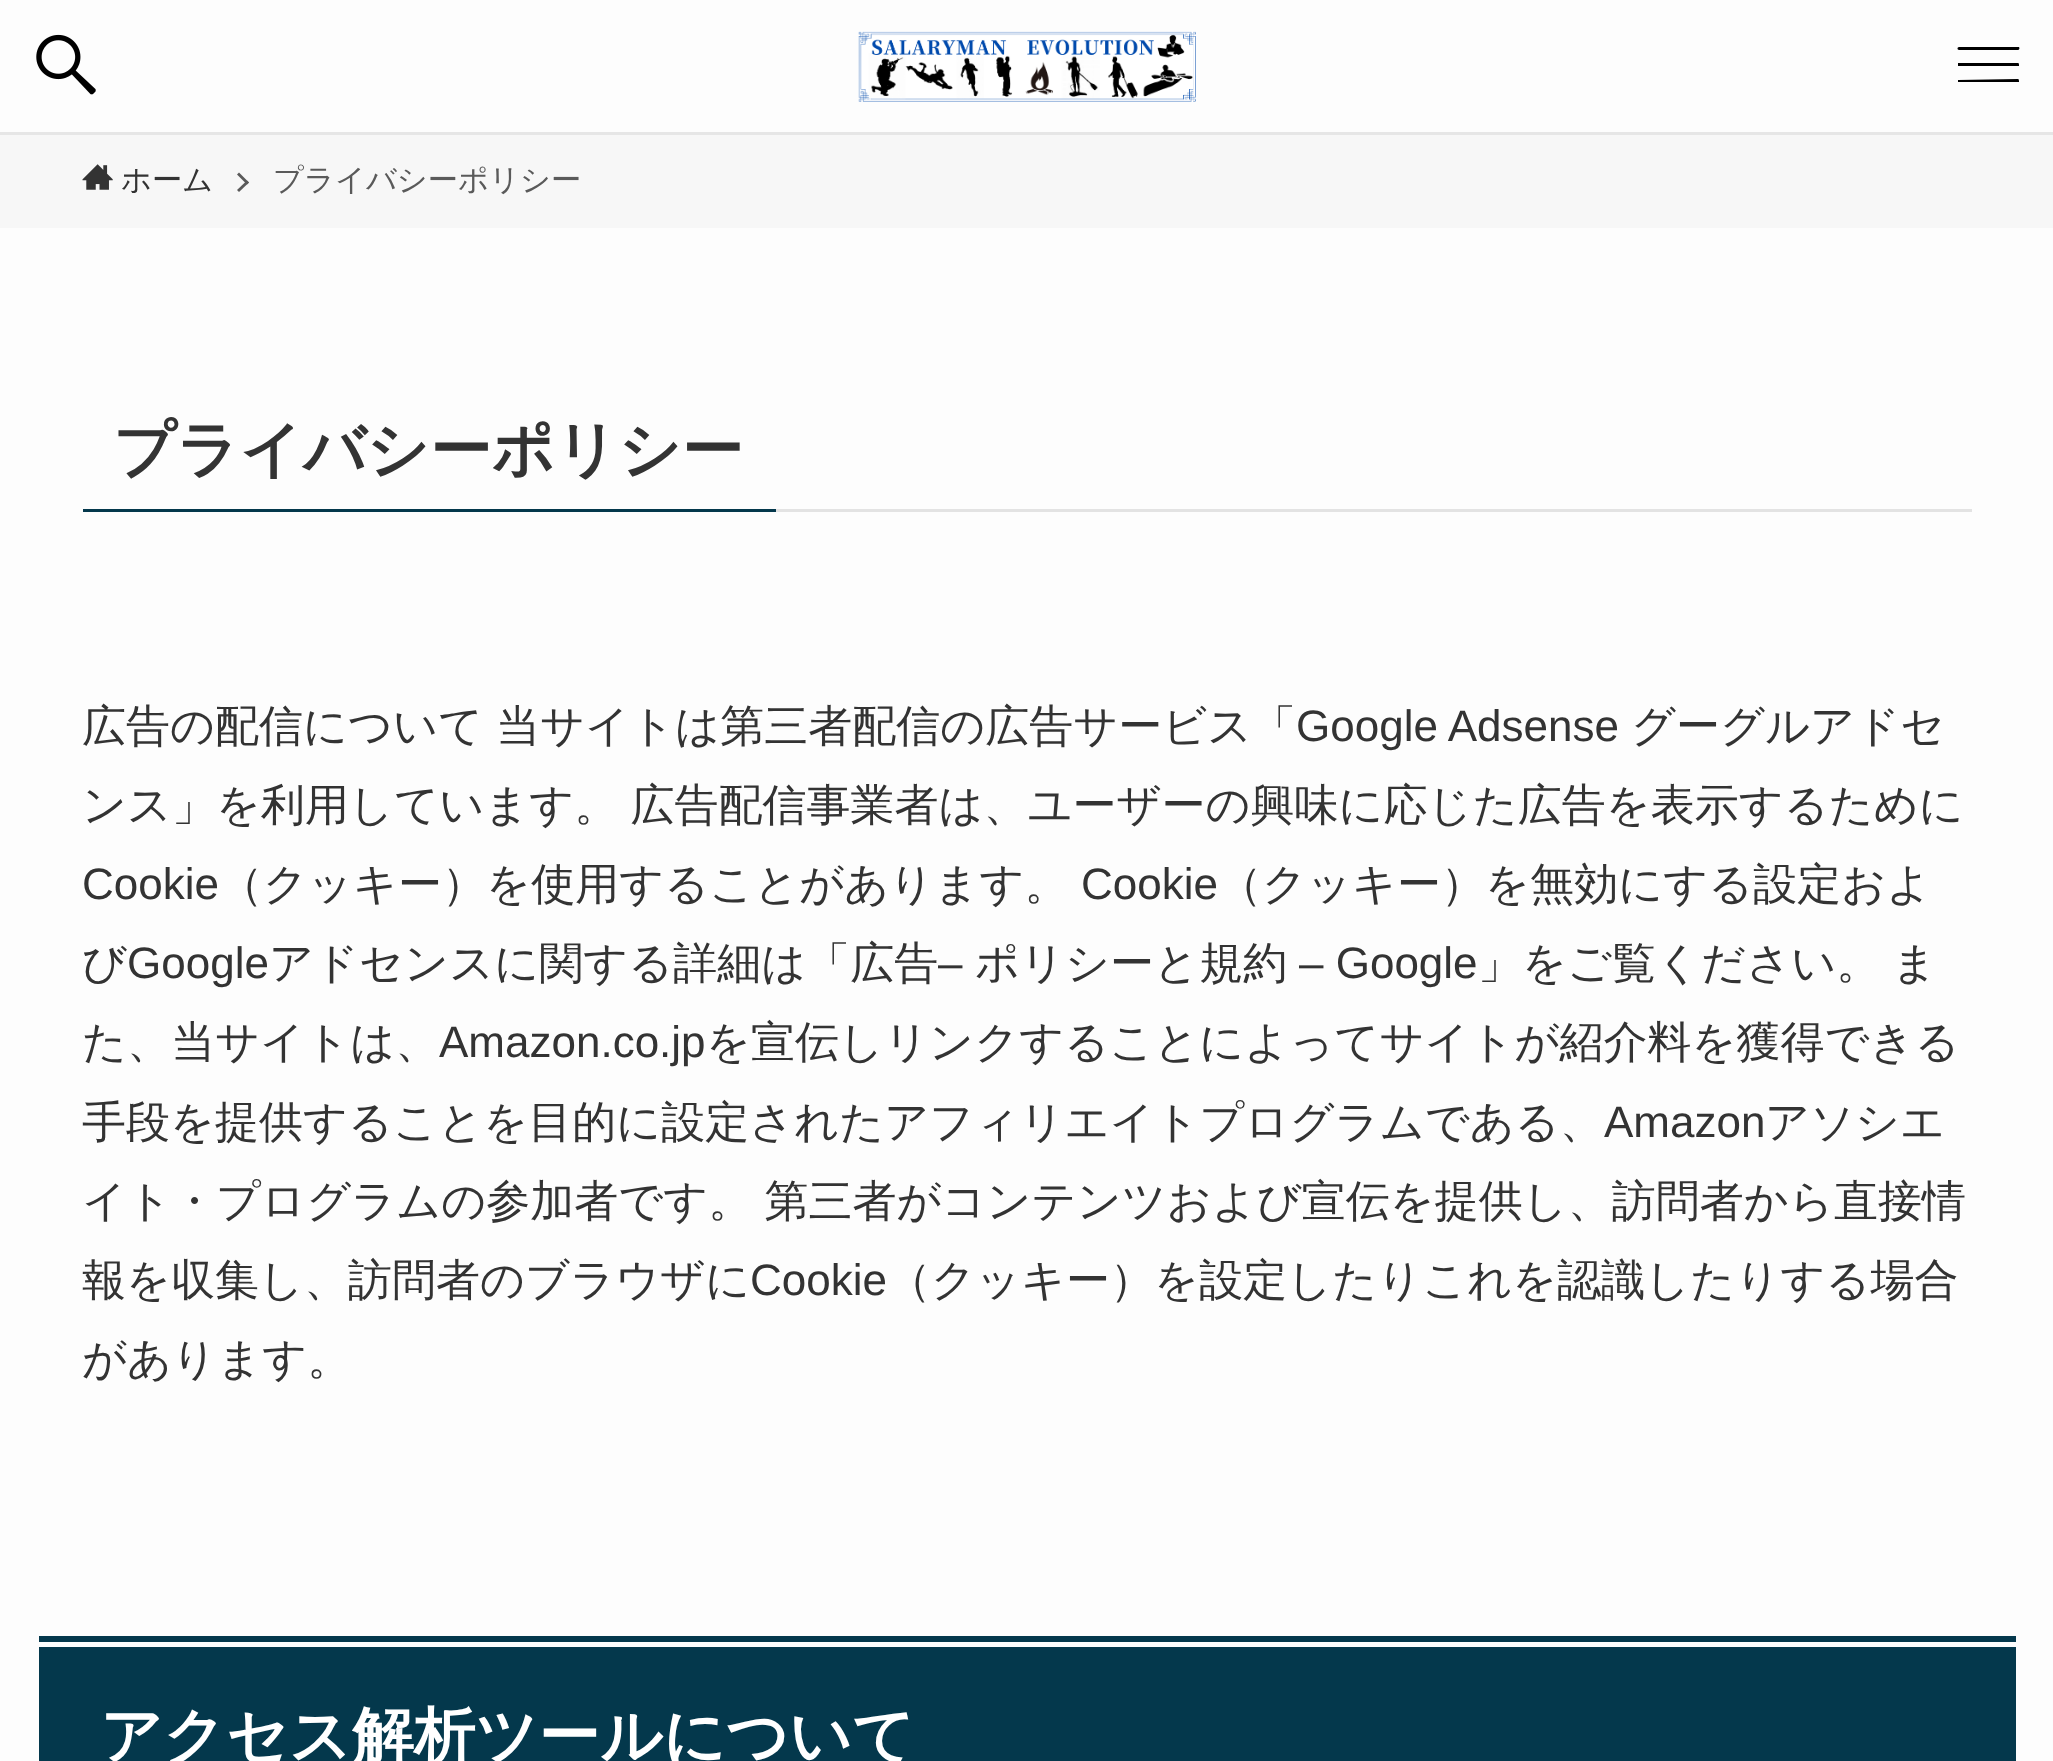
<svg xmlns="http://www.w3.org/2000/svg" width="2053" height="1761">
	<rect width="100%" height="100%" fill="#FDFDFD" />
	<rect x="0" y="132" width="2053" height="3" fill="#E6E6E6" />
	<image x="36" y="34" width="60" height="61" href="assets/img1.png" />
	<image x="858" y="31" width="338" height="71" href="assets/img2.png" />
	<path d="M2018 50H1959C1957 50 1957 47 1959 47H2019C2020 48 2019 50 2018 50ZM2018 66H1958V63H2018C2019 63 2019 64 2019 66ZM2018 82H1958V80L2018 79C2019 79 2019 81 2019 82Z" fill="#000000" />
	<rect x="0" y="135" width="2053" height="93" fill="#F7F7F7" />
	<image x="82" y="164" width="31" height="26" href="assets/img3.png" />
	<text x="121" y="190" font-family="WenQuanYi Zen Hei" font-size="30.25" font-weight="500" fill="#333333">ホーム</text>
	<path d="M239 172.5L249 182.5L247 184.5L237 174.5Z" fill="#5A5A5A" />
	<path d="M247 180.5L249 182.5L239 192L237 190Z" fill="#5A5A5A" />
	<text x="273" y="190" font-family="WenQuanYi Zen Hei" font-size="30.25" font-weight="500" fill="#5A5A5A">プライバシーポリシー</text>
	<rect x="776" y="509" width="1196" height="3" fill="#E3E3E3" />
	<rect x="83" y="509" width="693" height="3" fill="#04384C" />
	<text x="113" y="471" font-family="WenQuanYi Zen Hei" font-size="61.9" font-weight="700" fill="#333333">プライバシーポリシー</text>
	<g font-family="WenQuanYi Zen Hei" font-size="44" font-weight="500" fill="#333333">
		<text x="82" y="741">広告の配信について</text>
		<text x="496" y="741">当サイトは第三者配信の広告サービス「</text>
	</g>
	<text x="1296" y="741" font-family="Liberation Sans" font-size="44" fill="#333333">Google Adsense</text>
	<g font-family="WenQuanYi Zen Hei" font-size="44" font-weight="500" fill="#333333">
		<text x="1631" y="741">グーグルアドセ</text>
		<text x="82" y="820" word-spacing="-1">ンス」を利用しています。 広告配信事業者は、ユーザーの興味に応じた広告を表示するために</text>
	</g>
	<text x="82" y="899" font-family="Liberation Sans" font-size="44" fill="#333333">Cookie</text>
	<text x="219" y="899" font-family="WenQuanYi Zen Hei" font-size="44" font-weight="500" fill="#333333">（クッキー）を使用することがあります。</text>
	<text x="1081" y="899" font-family="Liberation Sans" font-size="44" fill="#333333">Cookie</text>
	<g font-family="WenQuanYi Zen Hei" font-size="44" font-weight="500" fill="#333333">
		<text x="1218" y="899">（クッキー）を無効にする設定およ</text>
		<text x="82" y="978">び</text>
	</g>
	<text x="127" y="978" font-family="Liberation Sans" font-size="44" fill="#333333">Google</text>
	<text x="269" y="978" font-family="WenQuanYi Zen Hei" font-size="44" font-weight="500" fill="#333333">アドセンスに関する詳細は「広告</text>
	<text x="938" y="978" font-family="Liberation Sans" font-size="44" fill="#333333">–</text>
	<text x="975" y="978" font-family="WenQuanYi Zen Hei" font-size="44" font-weight="500" fill="#333333">ポリシーと規約</text>
	<text x="1299" y="978" font-family="Liberation Sans" font-size="44" fill="#333333">– Google</text>
	<g font-family="WenQuanYi Zen Hei" font-size="44" font-weight="500" fill="#333333">
		<text x="1478" y="978">」をご覧ください。</text>
		<text x="1892" y="978">ま</text>
		<text x="82" y="1057">た、当サイトは、</text>
	</g>
	<text x="439" y="1057" font-family="Liberation Sans" font-size="44" fill="#333333">Amazon.co.jp</text>
	<g font-family="WenQuanYi Zen Hei" font-size="44" font-weight="500" fill="#333333">
		<text x="706" y="1057">を宣伝しリンクすることによってサイトが紹介料を獲得できる</text>
		<text x="82" y="1137">手段を提供することを目的に設定されたアフィリエイトプログラムである、</text>
	</g>
	<text x="1604" y="1137" font-family="Liberation Sans" font-size="44" fill="#333333">Amazon</text>
	<g font-family="WenQuanYi Zen Hei" font-size="44" font-weight="500" fill="#333333">
		<text x="1765" y="1137">アソシエ</text>
		<text x="82" y="1216" word-spacing="-1">イト・プログラムの参加者です。 第三者がコンテンツおよび宣伝を提供し、訪問者から直接情</text>
		<text x="82" y="1295">報を収集し、訪問者のブラウザに</text>
	</g>
	<text x="750" y="1295" font-family="Liberation Sans" font-size="44" fill="#333333">Cookie</text>
	<g font-family="WenQuanYi Zen Hei" font-size="44" font-weight="500" fill="#333333">
		<text x="887" y="1295">（クッキー）を設定したりこれを認識したりする場合</text>
		<text x="82" y="1374">があります。</text>
	</g>
	<rect x="39" y="1647" width="1977" height="114" fill="#04384C" />
	<rect x="39" y="1636" width="1977" height="6" fill="#04384C" />
	<text x="100" y="1757" font-family="WenQuanYi Zen Hei" font-size="61.6" font-weight="700" fill="#FFFFFF">アクセス解析ツールについて</text>
</svg>
